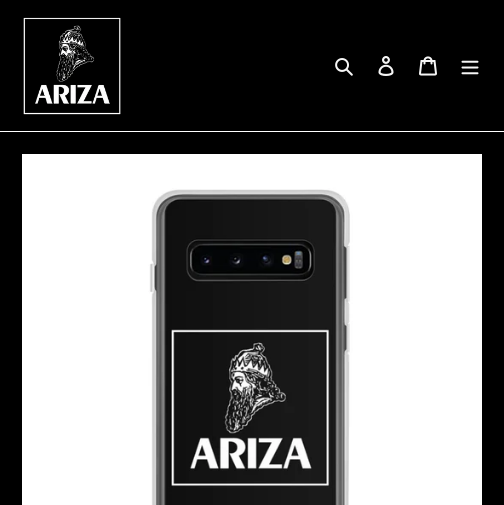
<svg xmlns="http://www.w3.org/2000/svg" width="504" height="505">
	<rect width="100%" height="100%" fill="#000000" />
	<rect x="0" y="131" width="504" height="1" fill="#FFFFFF" />
	<image x="23" y="17" width="98" height="98" href="assets/img1.png" />
	<image x="335" y="58" width="18" height="18" href="assets/img2.png" />
	<image x="378" y="56" width="16" height="20" href="assets/img3.png" />
	<image x="419" y="56" width="18" height="20" href="assets/img4.png" />
	<image x="461" y="60" width="18" height="15" href="assets/img5.png" />
	<image x="22" y="154" width="460" height="351" href="assets/img6.png" />
</svg>
